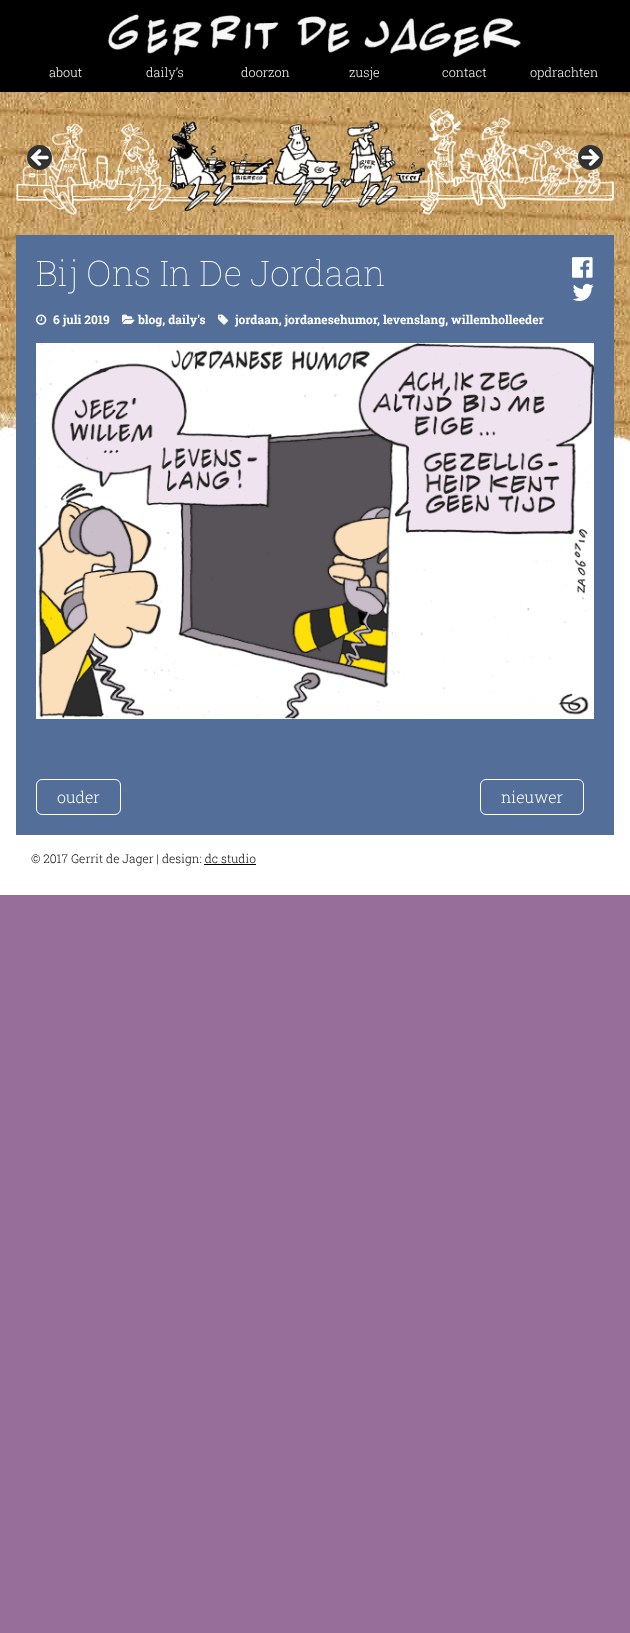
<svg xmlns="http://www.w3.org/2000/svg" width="630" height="1633">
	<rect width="100%" height="100%" fill="#976E99" />
	<rect x="0" y="0" width="630" height="92" fill="#000000" />
	<image x="108" y="14" width="413" height="44" href="assets/img1.png" />
	<g font-family="Roboto Slab" font-size="12.75" font-weight="300" fill="#FFFFFF">
		<text x="49" y="77">about</text>
		<text x="146" y="77">daily’s</text>
		<text x="241" y="77">doorzon</text>
		<text x="349" y="77">zusje</text>
		<text x="442" y="77">contact</text>
		<text x="530" y="77">opdrachten</text>
	</g>
	<rect x="0" y="460" width="630" height="435" fill="#FFFFFF" />
	<image x="0" y="92" width="630" height="368" href="assets/img2.png" />
	<image x="16" y="107" width="598" height="109" href="assets/img3.png" />
	<image x="27" y="145" width="25" height="25" href="assets/img4.png" />
	<image x="578" y="145" width="25" height="25" href="assets/img5.png" />
	<rect x="16" y="235" width="598" height="600" fill="#536E99" />
	<text x="36" y="286" font-family="Roboto Slab" font-size="35.25" font-weight="100" fill="#FFFFFF">Bij Ons In De Jordaan</text>
	<image x="572" y="257" width="21" height="21" href="assets/img6.png" />
	<image x="572" y="283" width="22" height="18" href="assets/img7.png" />
	<image x="36" y="314" width="11" height="11" href="assets/img8.png" />
	<text x="53" y="324" font-family="Roboto Slab" font-size="12" font-weight="700" fill="#FFFFFF">6 juli 2019</text>
	<image x="122" y="314" width="13" height="10" href="assets/img9.png" />
	<text x="138" y="324" font-family="Roboto Slab" font-size="12" font-weight="700" fill="#FFFFFF">blog, daily's</text>
	<image x="218" y="314" width="11" height="11" href="assets/img10.png" />
	<g font-family="Roboto Slab" font-size="12" font-weight="700" fill="#FFFFFF">
		<text x="235" y="324">jordaan, jordanesehumor</text>
		<text x="377" y="324">, levenslang, willemholleeder</text>
	</g>
	<image x="36" y="343" width="558" height="376" href="assets/img11.png" />
	<rect x="36.5" y="779.5" width="84" height="35" rx="5.5" fill="none" stroke="#FFFFFF" />
	<text x="57" y="803" font-family="Roboto Slab" font-size="16" font-weight="300" fill="#FFFFFF">ouder</text>
	<rect x="480.5" y="779.5" width="103" height="35" rx="5.5" fill="none" stroke="#FFFFFF" />
	<text x="501" y="803" font-family="Roboto Slab" font-size="16" font-weight="300" fill="#FFFFFF">nieuwer</text>
	<text x="31" y="863" font-family="Roboto Slab" font-size="12" font-weight="300" fill="#000000">© 2017 Gerrit de Jager | design: dc studio</text>
	<rect x="204" y="864" width="52" height="1" fill="#000000" />
</svg>
